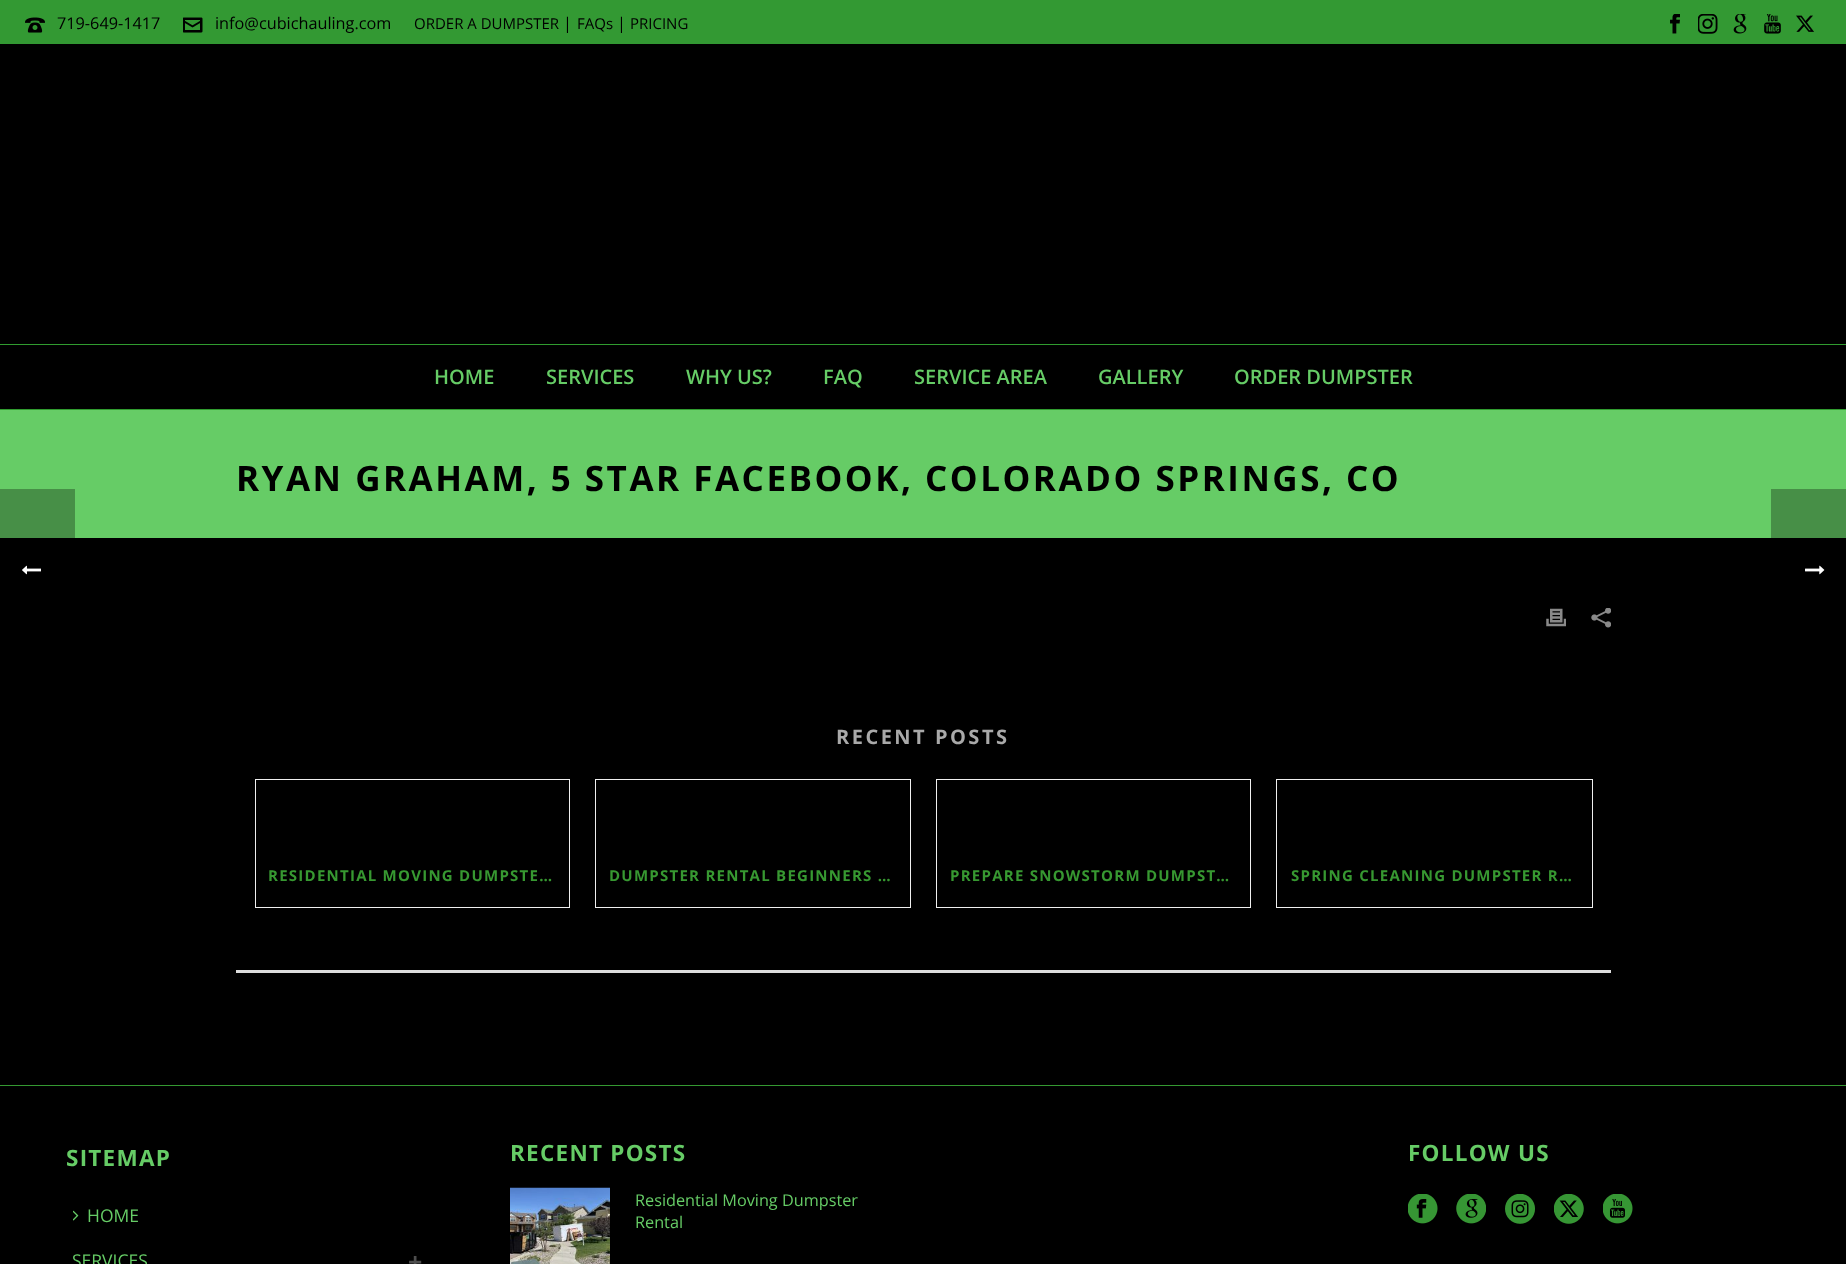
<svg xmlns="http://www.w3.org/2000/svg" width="1846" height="1264">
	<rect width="100%" height="100%" fill="#000000" />
	<image x="22" y="565" width="19" height="10" href="assets/img1.png" />
	<rect x="0" y="410" width="1846" height="128" fill="#66CC66" />
	<rect x="1771" y="489" width="75" height="49" fill="#478F47" />
	<rect x="0" y="489" width="75" height="49" fill="#478F47" />
	<rect x="0" y="0" width="1846" height="44" fill="#339933" />
	<image x="25" y="17" width="20" height="16" href="assets/img2.png" />
	<text x="57" y="29" font-family="Open Sans" font-size="16.25" fill="#000000">719-649-1417</text>
	<image x="183" y="17" width="20" height="16" href="assets/img3.png" />
	<text x="215" y="29" font-family="Open Sans" font-size="16.25" fill="#000000">info@cubichauling.com</text>
	<text x="414" y="29" font-family="Open Sans" font-size="15" fill="#000000">ORDER A DUMPSTER</text>
	<text x="563" y="29" font-family="Open Sans" font-size="16.25" fill="#000000">|</text>
	<text x="577" y="29" font-family="Open Sans" font-size="15" fill="#000000">FAQs</text>
	<text x="617" y="29" font-family="Open Sans" font-size="16.25" fill="#000000">|</text>
	<text x="630" y="29" font-family="Open Sans" font-size="15" fill="#000000">PRICING</text>
	<image x="1670" y="14" width="10" height="20" href="assets/img4.png" />
	<image x="1698" y="14" width="20" height="20" href="assets/img5.png" />
	<image x="1733" y="14" width="14" height="20" href="assets/img6.png" />
	<image x="1764" y="14" width="17" height="20" href="assets/img7.png" />
	<image x="1796" y="15" width="18" height="17" href="assets/img8.png" />
	<rect x="0" y="409" width="1846" height="1" fill="#309C2F" />
	<rect x="0" y="344" width="1846" height="1" fill="#309C2F" />
	<g font-family="Open Sans" font-size="20" font-weight="600" fill="#66CC66">
		<text x="434" y="384">HOME</text>
		<text x="546" y="384">SERVICES</text>
		<text x="686" y="384">WHY US?</text>
		<text x="823" y="384">FAQ</text>
		<text x="914" y="384">SERVICE AREA</text>
		<text x="1098" y="384">GALLERY</text>
		<text x="1234" y="384">ORDER DUMPSTER</text>
	</g>
	<text x="236" y="491" font-family="Open Sans" font-size="35" font-weight="700" letter-spacing="2.5" fill="#000000">RYAN GRAHAM, 5 STAR FACEBOOK, COLORADO SPRINGS, CO</text>
	<image x="1546" y="608" width="20" height="19" href="assets/img9.png" />
	<image x="1591" y="608" width="20" height="20" href="assets/img10.png" />
	<rect x="236" y="970" width="1375" height="3" fill="#DDDDDD" />
	<text x="836" y="744" font-family="Open Sans" font-size="20" font-weight="700" letter-spacing="2.5" fill="#A9A9A9">RECENT POSTS</text>
	<rect x="255.5" y="779.5" width="314" height="128" fill="none" stroke="#EFEFEF" />
	<text x="268" y="881" font-family="Open Sans" font-size="15" font-weight="700" letter-spacing="1.25" fill="#379831">RESIDENTIAL MOVING DUMPSTE…</text>
	<rect x="595.5" y="779.5" width="315" height="128" fill="none" stroke="#EFEFEF" />
	<text x="609" y="881" font-family="Open Sans" font-size="15" font-weight="700" letter-spacing="1.25" fill="#379831">DUMPSTER RENTAL BEGINNERS …</text>
	<rect x="936.5" y="779.5" width="314" height="128" fill="none" stroke="#EFEFEF" />
	<text x="950" y="881" font-family="Open Sans" font-size="15" font-weight="700" letter-spacing="1.25" fill="#379831">PREPARE SNOWSTORM DUMPST…</text>
	<rect x="1276.5" y="779.5" width="316" height="128" fill="none" stroke="#EFEFEF" />
	<text x="1291" y="881" font-family="Open Sans" font-size="15" font-weight="700" letter-spacing="1.25" fill="#379831">SPRING CLEANING DUMPSTER R…</text>
	<rect x="0" y="1085" width="1846" height="1" fill="#349931" />
	<text x="66" y="1166" font-family="Open Sans" font-size="22.5" font-weight="700" letter-spacing="1.25" fill="#66CC66">SITEMAP</text>
	<image x="73" y="1210" width="6" height="11" href="assets/img11.png" />
	<g font-family="Open Sans" font-size="17.5" fill="#66CC66">
		<text x="87" y="1222">HOME</text>
		<text x="72" y="1267">SERVICES</text>
	</g>
	<text x="408" y="1271" font-family="Open Sans" font-size="25" font-weight="700" fill="#4D4D4D">+</text>
	<text x="510" y="1161" font-family="Open Sans" font-size="22.5" font-weight="700" letter-spacing="1.25" fill="#66CC66">RECENT POSTS</text>
	<image x="510" y="1187" width="100" height="77" href="assets/img12.png" />
	<g font-family="Open Sans" font-size="16.25" fill="#66CC66">
		<text x="635" y="1206">Residential Moving Dumpster</text>
		<text x="635" y="1228">Rental</text>
	</g>
	<text x="1408" y="1161" font-family="Open Sans" font-size="22.5" font-weight="700" letter-spacing="1.25" fill="#66CC66">FOLLOW US</text>
	<image x="1408" y="1194" width="30" height="30" href="assets/img13.png" />
	<image x="1456" y="1194" width="30" height="30" href="assets/img14.png" />
	<image x="1505" y="1194" width="30" height="30" href="assets/img15.png" />
	<image x="1554" y="1194" width="30" height="30" href="assets/img16.png" />
	<image x="1603" y="1194" width="30" height="30" href="assets/img17.png" />
	<image x="1805" y="565" width="20" height="10" href="assets/img18.png" />
</svg>
